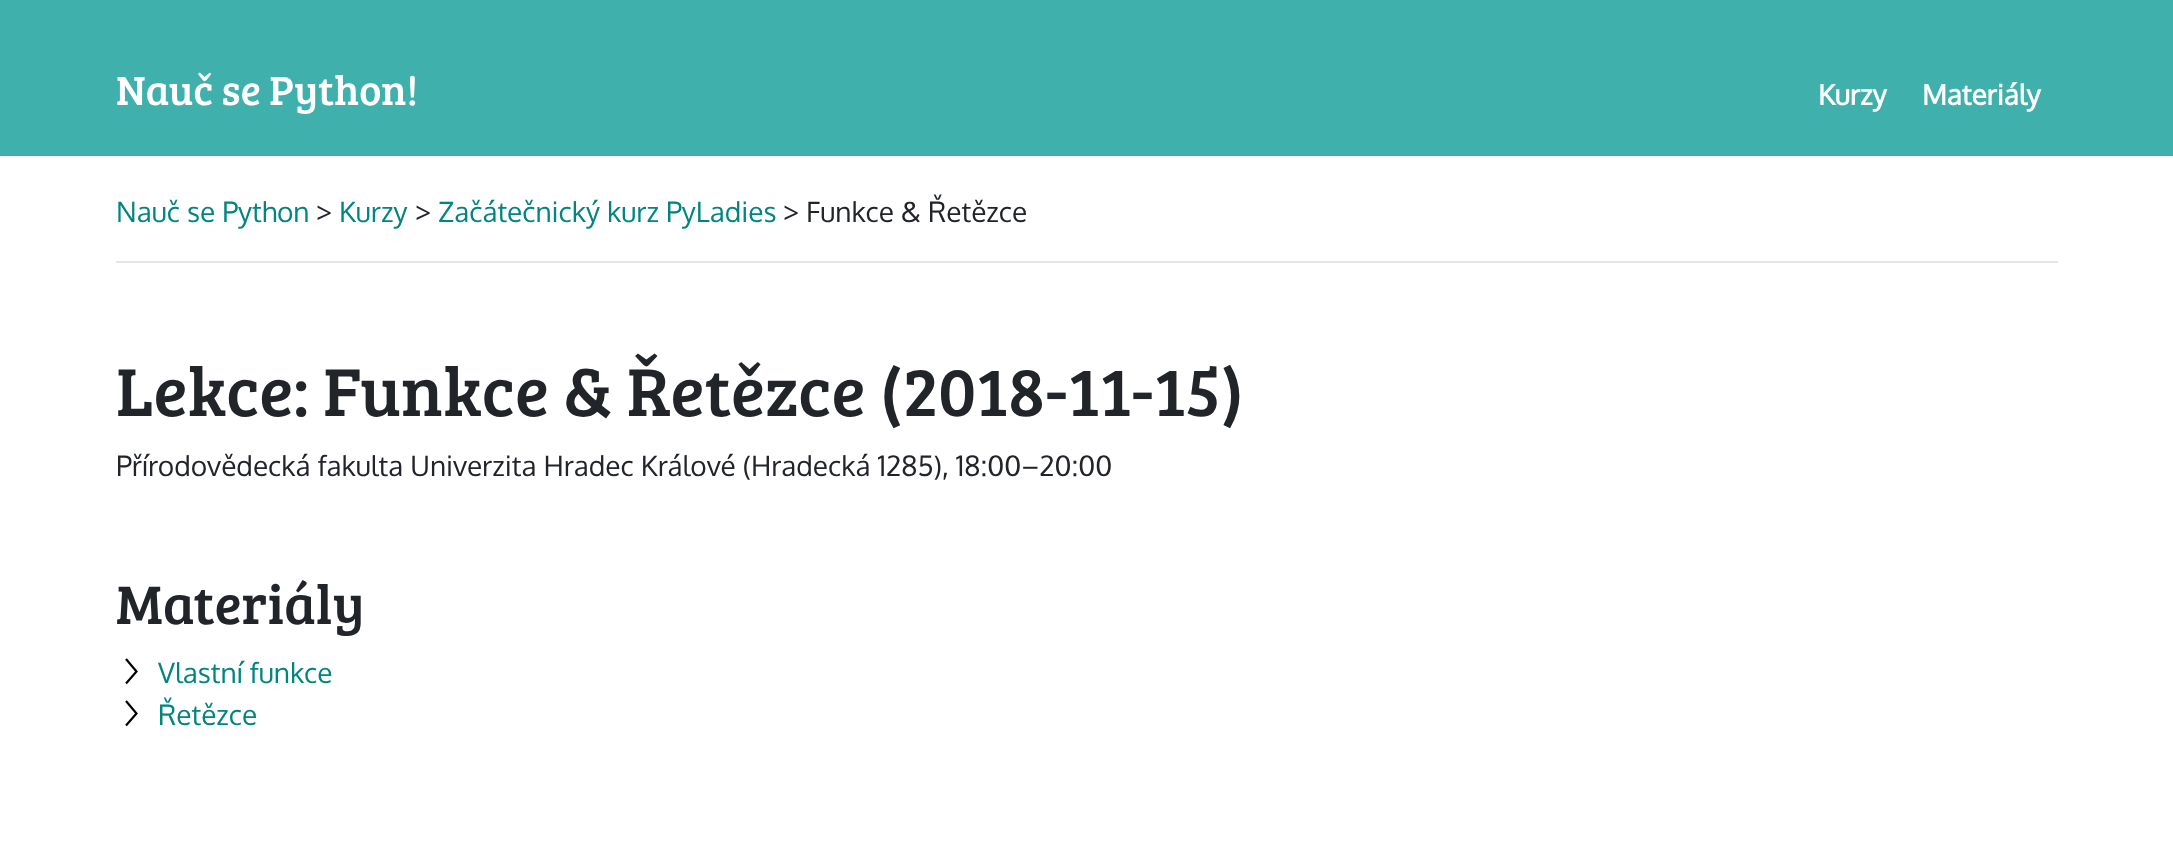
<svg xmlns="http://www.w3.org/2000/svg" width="2173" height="858">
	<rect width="100%" height="100%" fill="#FFFFFF" />
	<rect x="0" y="0" width="2173" height="156" fill="#3FB0AC" />
	<text x="116" y="105" font-family="Bree Serif" font-size="42" fill="#FFFFFF">Nauč se Python!</text>
	<g font-family="Oxygen" font-size="28" font-weight="700" fill="#FFFFFF">
		<text x="1818" y="105">Kurzy</text>
		<text x="1922" y="105">Materiály</text>
	</g>
	<text x="116" y="222" font-family="Oxygen" font-size="28" fill="#008580">Nauč se Python</text>
	<text x="316" y="222" font-family="Oxygen" font-size="28" fill="#212529">&gt;</text>
	<text x="339" y="222" font-family="Oxygen" font-size="28" fill="#008580">Kurzy</text>
	<text x="415" y="222" font-family="Oxygen" font-size="28" fill="#212529">&gt;</text>
	<text x="438" y="222" font-family="Oxygen" font-size="28" fill="#008580">Začátečnický kurz PyLadies</text>
	<text x="783" y="222" font-family="Oxygen" font-size="28" fill="#212529">&gt; Funkce &amp; Řetězce</text>
	<rect x="116" y="261" width="1942" height="2" fill="#E6E6E6" />
	<text x="116" y="416" font-family="Bree Serif" font-size="70" fill="#212529">Lekce: Funkce &amp; Řetězce (2018-11-15)</text>
	<text x="116" y="476" font-family="Oxygen" font-size="28" fill="#212529">Přírodovědecká fakulta Univerzita Hradec Králové (Hradecká 1285), 18:00–20:00</text>
	<text x="116" y="624" font-family="Bree Serif" font-size="56" fill="#212529">Materiály</text>
	<text x="158" y="683" font-family="Oxygen" font-size="28" fill="#008580">Vlastní funkce</text>
	<path d="M126 683.5L136.5 671.5L126 659" fill="none" stroke="#000000" stroke-width="2.2" />
	<text x="158" y="725" font-family="Oxygen" font-size="28" fill="#008580">Řetězce</text>
	<path d="M126 725.5L136.5 713.5L126 701" fill="none" stroke="#000000" stroke-width="2.2" />
</svg>
